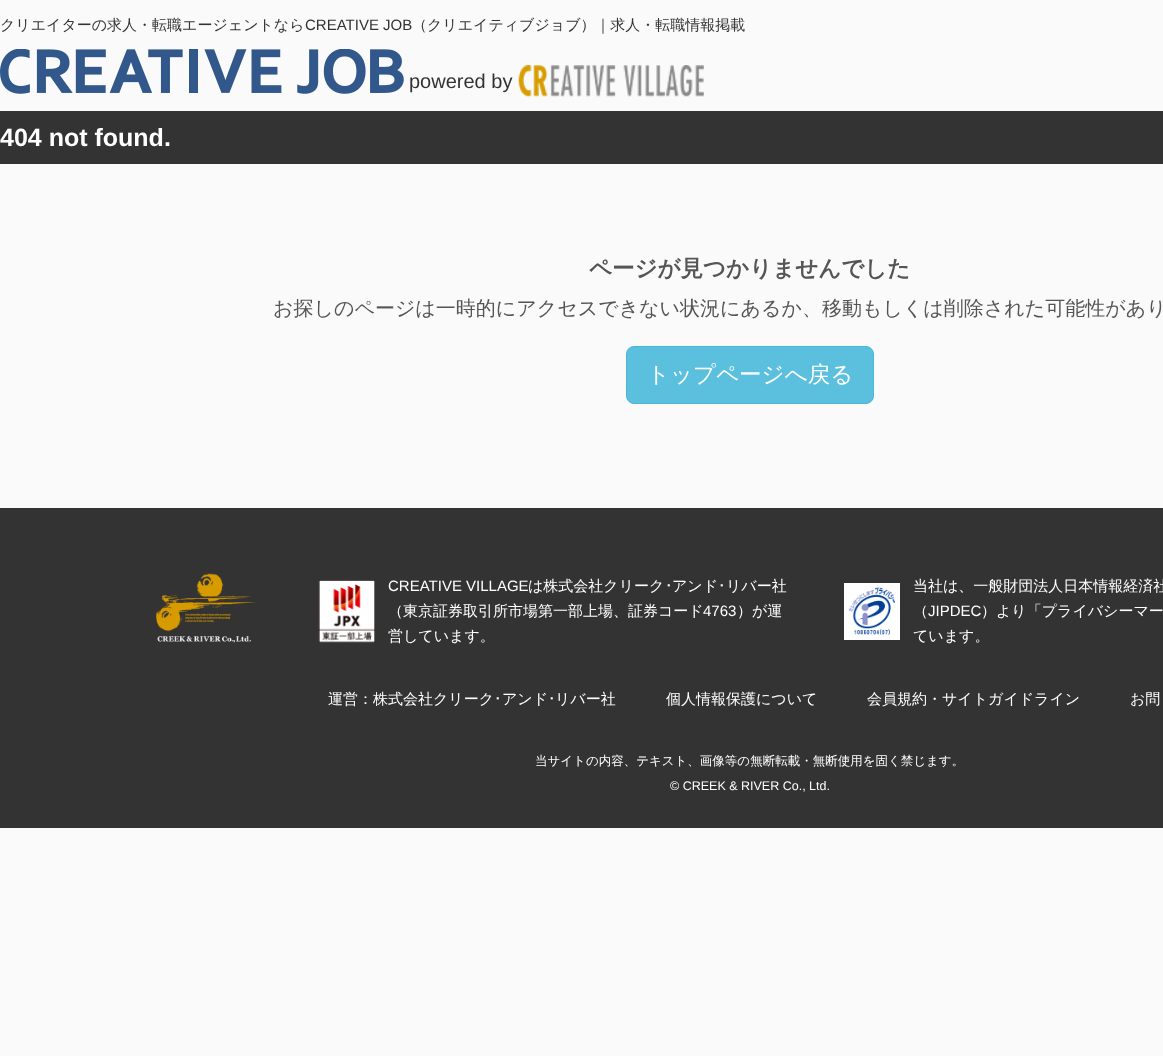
<svg xmlns="http://www.w3.org/2000/svg" width="1163" height="1056">
	<rect width="100%" height="100%" fill="#FAFAFA" />
	<text x="0" y="30" font-family="WenQuanYi Zen Hei" font-size="15" font-weight="500" fill="#333333">クリエイターの求人・転職エージェントなら</text>
	<text x="305" y="30" font-family="Liberation Sans" font-size="15" fill="#333333">CREATIVE JOB</text>
	<text x="412" y="30" font-family="WenQuanYi Zen Hei" font-size="15" font-weight="500" fill="#333333">（クリエイティブジョブ）｜求人・転職情報掲載</text>
	<image x="0" y="49" width="404" height="45" href="assets/img1.png" />
	<text x="409" y="88" font-family="Liberation Sans" font-size="20" fill="#333333">powered by</text>
	<image x="518" y="65" width="186" height="32" href="assets/img2.png" />
	<rect x="0" y="111" width="1163" height="53" fill="#333333" />
	<text x="0" y="146" font-family="Liberation Sans" font-size="25" font-weight="700" fill="#FFFFFF">404 not found.</text>
	<text x="589" y="276" font-family="WenQuanYi Zen Hei" font-size="22.5" font-weight="700" fill="#555555">ページが見つかりませんでした</text>
	<text x="273" y="315" font-family="WenQuanYi Zen Hei" font-size="20" font-weight="500" fill="#555555">お探しのページは一時的にアクセスできない状況にあるか、移動もしくは削除された可能性があり</text>
	<rect x="626.5" y="346.5" width="247" height="57" rx="7.5" fill="#5BC0DE" stroke="#46B8DA" />
	<text x="647" y="382" font-family="WenQuanYi Zen Hei" font-size="22.5" font-weight="500" fill="#FFFFFF">トップページへ戻る</text>
	<rect x="0" y="508" width="1163" height="320" fill="#333333" />
	<image x="156" y="573" width="100" height="70" href="assets/img3.png" />
	<image x="318" y="580" width="57" height="63" href="assets/img4.png" />
	<text x="388" y="591" font-family="Liberation Sans" font-size="15" fill="#FFFFFF">CREATIVE VILLAGE</text>
	<text x="528" y="591" font-family="WenQuanYi Zen Hei" font-size="15" font-weight="500" fill="#FFFFFF">は株式会社クリーク</text>
	<text x="665" y="591" font-family="IPAPGothic" font-size="15" fill="#FFFFFF">･</text>
	<text x="672" y="591" font-family="WenQuanYi Zen Hei" font-size="15" font-weight="500" fill="#FFFFFF">アンド</text>
	<text x="718" y="591" font-family="IPAPGothic" font-size="15" fill="#FFFFFF">･</text>
	<g font-family="WenQuanYi Zen Hei" font-size="15" font-weight="500" fill="#FFFFFF">
		<text x="726" y="591">リバー社</text>
		<text x="388" y="616">（東京証券取引所市場第一部上場、証券コード</text>
	</g>
	<text x="703" y="616" font-family="Liberation Sans" font-size="15" fill="#FFFFFF">4763</text>
	<g font-family="WenQuanYi Zen Hei" font-size="15" font-weight="500" fill="#FFFFFF">
		<text x="737" y="616">）が運</text>
		<text x="388" y="641">営しています。</text>
	</g>
	<rect x="844" y="583" width="56" height="57" fill="#FFFFFF" />
	<image x="848" y="587" width="47" height="48" href="assets/img5.png" />
	<g font-family="WenQuanYi Zen Hei" font-size="15" font-weight="500" fill="#FFFFFF">
		<text x="913" y="591">当社は、一般財団法人日本情報経済社</text>
		<text x="913" y="616">（</text>
	</g>
	<text x="928" y="616" font-family="Liberation Sans" font-size="15" fill="#FFFFFF">JIPDEC</text>
	<g font-family="WenQuanYi Zen Hei" font-size="15" font-weight="500" fill="#FFFFFF">
		<text x="981" y="616">）より「プライバシーマー</text>
		<text x="913" y="641">ています。</text>
		<text x="328" y="704">運営：株式会社クリーク</text>
	</g>
	<text x="494" y="704" font-family="IPAPGothic" font-size="15" fill="#FFFFFF">･</text>
	<text x="502" y="704" font-family="WenQuanYi Zen Hei" font-size="15" font-weight="500" fill="#FFFFFF">アンド</text>
	<text x="548" y="704" font-family="IPAPGothic" font-size="15" fill="#FFFFFF">･</text>
	<g font-family="WenQuanYi Zen Hei" font-size="15" font-weight="500" fill="#FFFFFF">
		<text x="555" y="704">リバー社</text>
		<text x="666" y="704">個人情報保護について</text>
		<text x="867" y="704">会員規約・サイトガイドライン</text>
		<text x="1130" y="704">お問</text>
	</g>
	<text x="535" y="765" font-family="WenQuanYi Zen Hei" font-size="12.5" font-weight="500" fill="#FFFFFF">当サイトの内容、テキスト、画像等の無断転載・無断使用を固く禁じます。</text>
	<text x="670" y="790" font-family="Liberation Sans" font-size="12.5" fill="#FFFFFF">© CREEK &amp; RIVER Co., Ltd.</text>
</svg>
